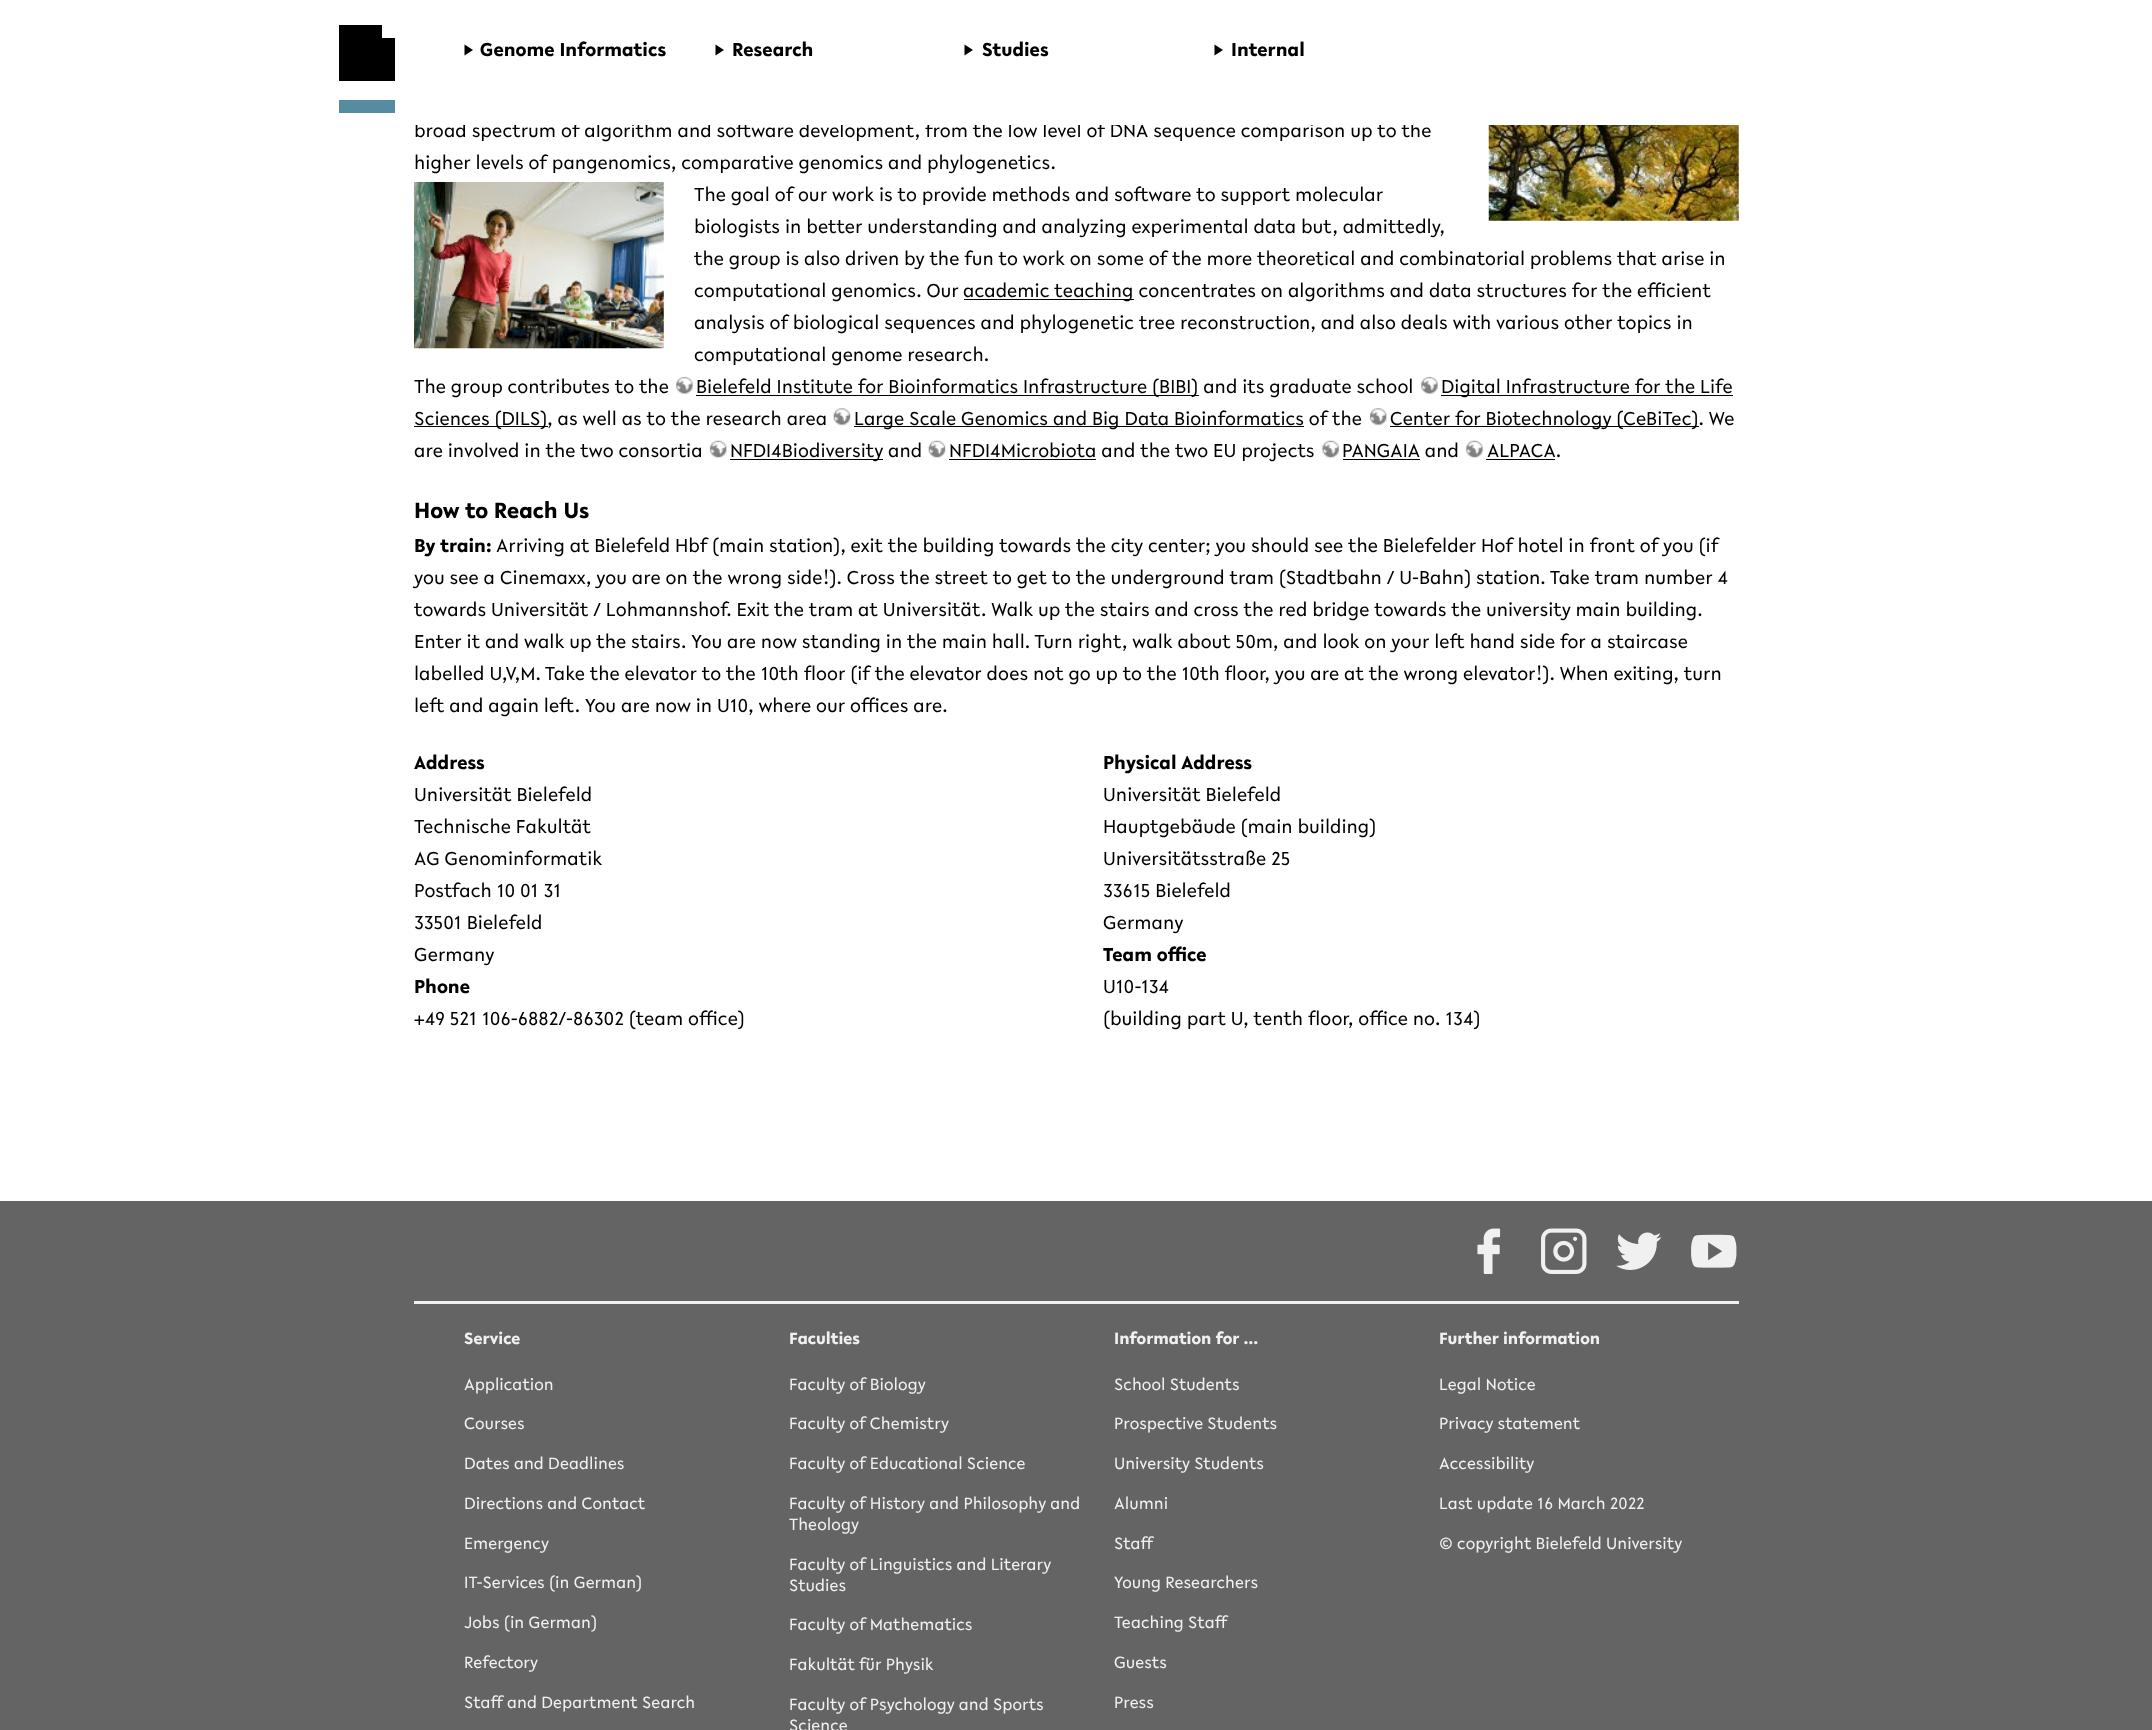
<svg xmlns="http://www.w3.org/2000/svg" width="2152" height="1730">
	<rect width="100%" height="100%" fill="#FFFFFF" />
	<path d="M382 38V25H339V81H395V38Z" fill="#000000" />
	<rect x="339" y="100" width="56" height="13" fill="#558CA0" />
	<path d="M473 50L464.5 55.5V44.5Z" fill="#000000" />
	<text x="480" y="56" font-family="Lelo" font-size="20" font-weight="700" fill="#000000">Genome Informatics</text>
	<path d="M724 50L715.5 55.5V44.5Z" fill="#000000" />
	<text x="732" y="56" font-family="Lelo" font-size="20" font-weight="700" fill="#000000">Research</text>
	<path d="M973 50L964.5 55.5V44.5Z" fill="#000000" />
	<text x="982" y="56" font-family="Lelo" font-size="20" font-weight="700" fill="#000000">Studies</text>
	<path d="M1223 50L1214.5 55.5V44.5Z" fill="#000000" />
	<text x="1231" y="56" font-family="Lelo" font-size="20" font-weight="700" fill="#000000">Internal</text>
	<text x="414" y="137" font-family="Lelo" font-size="20" fill="#000000">broad spectrum of algorithm and software development, from the low level of DNA sequence comparison up to the</text>
	<rect x="415" y="122" width="998" height="3" fill="#FFFFFF" />
	<image x="1488" y="125" width="251" height="96" href="assets/img1.png" />
	<text x="414" y="169" font-family="Lelo" font-size="20" fill="#000000">higher levels of pangenomics, comparative genomics and phylogenetics.</text>
	<image x="414" y="182" width="250" height="167" href="assets/img2.png" />
	<g font-family="Lelo" font-size="20" fill="#000000">
		<text x="694" y="201">The goal of our work is to provide methods and software to support molecular</text>
		<text x="694" y="233">biologists in better understanding and analyzing experimental data but, admittedly,</text>
		<text x="694" y="265">the group is also driven by the fun to work on some of the more theoretical and combinatorial problems that arise in</text>
		<text x="694" y="297">computational genomics. Our</text>
	</g>
	<rect x="964" y="299" width="170" height="1" fill="#000000" />
	<g font-family="Lelo" font-size="20" fill="#000000">
		<text x="963" y="297">academic teaching concentrates on algorithms and data structures for the efficient</text>
		<text x="694" y="329">analysis of biological sequences and phylogenetic tree reconstruction, and also deals with various other topics in</text>
		<text x="694" y="361">computational genome research.</text>
		<text x="414" y="393">The group contributes to the</text>
	</g>
	<image x="676" y="376" width="18" height="19" href="assets/img3.png" />
	<rect x="696" y="395" width="503" height="1" fill="#000000" />
	<text x="696" y="393" font-family="Lelo" font-size="20" fill="#000000">Bielefeld Institute for Bioinformatics Infrastructure (BIBI) and its graduate school</text>
	<image x="1421" y="376" width="18" height="19" href="assets/img4.png" />
	<rect x="1441" y="395" width="292" height="1" fill="#000000" />
	<text x="1441" y="393" font-family="Lelo" font-size="20" fill="#000000">Digital Infrastructure for the Life</text>
	<rect x="414" y="426" width="134" height="1" fill="#000000" />
	<text x="414" y="425" font-family="Lelo" font-size="20" fill="#000000">Sciences (DILS), as well as to the research area</text>
	<image x="833" y="408" width="18" height="18" href="assets/img5.png" />
	<rect x="854" y="426" width="450" height="1" fill="#000000" />
	<text x="854" y="425" font-family="Lelo" font-size="20" fill="#000000">Large Scale Genomics and Big Data Bioinformatics of the</text>
	<image x="1369" y="408" width="18" height="18" href="assets/img6.png" />
	<rect x="1390" y="426" width="309" height="1" fill="#000000" />
	<g font-family="Lelo" font-size="20" fill="#000000">
		<text x="1390" y="425">Center for Biotechnology (CeBiTec). We</text>
		<text x="414" y="457">are involved in the two consortia</text>
	</g>
	<image x="709" y="440" width="18" height="19" href="assets/img7.png" />
	<rect x="730" y="459" width="153" height="1" fill="#000000" />
	<text x="730" y="457" font-family="Lelo" font-size="20" fill="#000000">NFDI4Biodiversity and</text>
	<image x="928" y="440" width="18" height="19" href="assets/img8.png" />
	<rect x="949" y="459" width="147" height="1" fill="#000000" />
	<text x="949" y="457" font-family="Lelo" font-size="20" fill="#000000">NFDI4Microbiota and the two EU projects</text>
	<image x="1322" y="440" width="18" height="19" href="assets/img9.png" />
	<text x="1342" y="457" font-family="Lelo" font-size="20" fill="#000000">PANGAIA and</text>
	<rect x="1343" y="459" width="77" height="1" fill="#000000" />
	<image x="1466" y="440" width="18" height="19" href="assets/img10.png" />
	<text x="1487" y="457" font-family="Lelo" font-size="20" fill="#000000">ALPACA.</text>
	<rect x="1486" y="459" width="69" height="1" fill="#000000" />
	<text x="414" y="518" font-family="Lelo" font-size="23.5" font-weight="700" fill="#000000">How to Reach Us</text>
	<text x="414" y="552" font-family="Lelo" font-size="20" font-weight="700" fill="#000000">By train:</text>
	<g font-family="Lelo" font-size="20" fill="#000000">
		<text x="496" y="552">Arriving at Bielefeld Hbf (main station), exit the building towards the city center; you should see the Bielefelder Hof hotel in front of you (if</text>
		<text x="414" y="584">you see a Cinemaxx, you are on the wrong side!). Cross the street to get to the underground tram (Stadtbahn / U-Bahn) station. Take tram number 4</text>
		<text x="414" y="616">towards Universität / Lohmannshof. Exit the tram at Universität. Walk up the stairs and cross the red bridge towards the university main building.</text>
		<text x="414" y="648">Enter it and walk up the stairs. You are now standing in the main hall. Turn right, walk about 50m, and look on your left hand side for a staircase</text>
		<text x="414" y="680">labelled U,V,M. Take the elevator to the 10th floor (if the elevator does not go up to the 10th floor, you are at the wrong elevator!). When exiting, turn</text>
		<text x="414" y="712">left and again left. You are now in U10, where our offices are.</text>
	</g>
	<text x="414" y="769" font-family="Lelo" font-size="20" font-weight="700" fill="#000000">Address</text>
	<g font-family="Lelo" font-size="20" fill="#000000">
		<text x="414" y="801">Universität Bielefeld</text>
		<text x="414" y="833">Technische Fakultät</text>
		<text x="414" y="865">AG Genominformatik</text>
		<text x="414" y="897">Postfach 10 01 31</text>
		<text x="414" y="929">33501 Bielefeld</text>
		<text x="414" y="961">Germany</text>
	</g>
	<text x="414" y="993" font-family="Lelo" font-size="20" font-weight="700" fill="#000000">Phone</text>
	<text x="414" y="1025" font-family="Lelo" font-size="20" fill="#000000">+49 521 106-6882/-86302 (team office)</text>
	<text x="1103" y="769" font-family="Lelo" font-size="20" font-weight="700" fill="#000000">Physical Address</text>
	<g font-family="Lelo" font-size="20" fill="#000000">
		<text x="1103" y="801">Universität Bielefeld</text>
		<text x="1103" y="833">Hauptgebäude (main building)</text>
		<text x="1103" y="865">Universitätsstraße 25</text>
		<text x="1103" y="897">33615 Bielefeld</text>
		<text x="1103" y="929">Germany</text>
	</g>
	<text x="1103" y="961" font-family="Lelo" font-size="20" font-weight="700" fill="#000000">Team office</text>
	<g font-family="Lelo" font-size="20" fill="#000000">
		<text x="1103" y="993">U10-134</text>
		<text x="1103" y="1025">(building part U, tenth floor, office no. 134)</text>
	</g>
	<rect x="0" y="1201" width="2152" height="529" fill="#646464" />
	<image x="1477" y="1228" width="24" height="46" href="assets/img11.png" />
	<image x="1541" y="1228" width="46" height="46" href="assets/img12.png" />
	<image x="1616" y="1232" width="46" height="38" href="assets/img13.png" />
	<image x="1691" y="1234" width="46" height="34" href="assets/img14.png" />
	<rect x="414" y="1301" width="1325" height="3" fill="#F0F0F0" />
	<text x="464" y="1344" font-family="Lelo" font-size="17.5" font-weight="700" fill="#F0F0F0">Service</text>
	<g font-family="Lelo" font-size="17.5" fill="#F0F0F0">
		<text x="464" y="1390">Application</text>
		<text x="464" y="1429">Courses</text>
		<text x="464" y="1469">Dates and Deadlines</text>
		<text x="464" y="1509">Directions and Contact</text>
		<text x="464" y="1549">Emergency</text>
		<text x="464" y="1588">IT-Services (in German)</text>
		<text x="464" y="1628">Jobs (in German)</text>
		<text x="464" y="1668">Refectory</text>
		<text x="464" y="1708">Staff and Department Search</text>
	</g>
	<text x="789" y="1344" font-family="Lelo" font-size="17.5" font-weight="700" fill="#F0F0F0">Faculties</text>
	<g font-family="Lelo" font-size="17.5" fill="#F0F0F0">
		<text x="789" y="1390">Faculty of Biology</text>
		<text x="789" y="1429">Faculty of Chemistry</text>
		<text x="789" y="1469">Faculty of Educational Science</text>
		<text x="789" y="1509">Faculty of History and Philosophy and</text>
		<text x="789" y="1530">Theology</text>
		<text x="789" y="1570">Faculty of Linguistics and Literary</text>
		<text x="789" y="1591">Studies</text>
		<text x="789" y="1630">Faculty of Mathematics</text>
		<text x="789" y="1670">Fakultät für Physik</text>
		<text x="789" y="1710">Faculty of Psychology and Sports</text>
		<text x="789" y="1731">Science</text>
	</g>
	<text x="1114" y="1344" font-family="Lelo" font-size="17.5" font-weight="700" fill="#F0F0F0">Information for …</text>
	<g font-family="Lelo" font-size="17.5" fill="#F0F0F0">
		<text x="1114" y="1390">School Students</text>
		<text x="1114" y="1429">Prospective Students</text>
		<text x="1114" y="1469">University Students</text>
		<text x="1114" y="1509">Alumni</text>
		<text x="1114" y="1549">Staff</text>
		<text x="1114" y="1588">Young Researchers</text>
		<text x="1114" y="1628">Teaching Staff</text>
		<text x="1114" y="1668">Guests</text>
		<text x="1114" y="1708">Press</text>
	</g>
	<text x="1439" y="1344" font-family="Lelo" font-size="17.5" font-weight="700" fill="#F0F0F0">Further information</text>
	<g font-family="Lelo" font-size="17.5" fill="#F0F0F0">
		<text x="1439" y="1390">Legal Notice</text>
		<text x="1439" y="1429">Privacy statement</text>
		<text x="1439" y="1469">Accessibility</text>
		<text x="1439" y="1509">Last update 16 March 2022</text>
		<text x="1439" y="1549">© copyright Bielefeld University</text>
	</g>
</svg>
